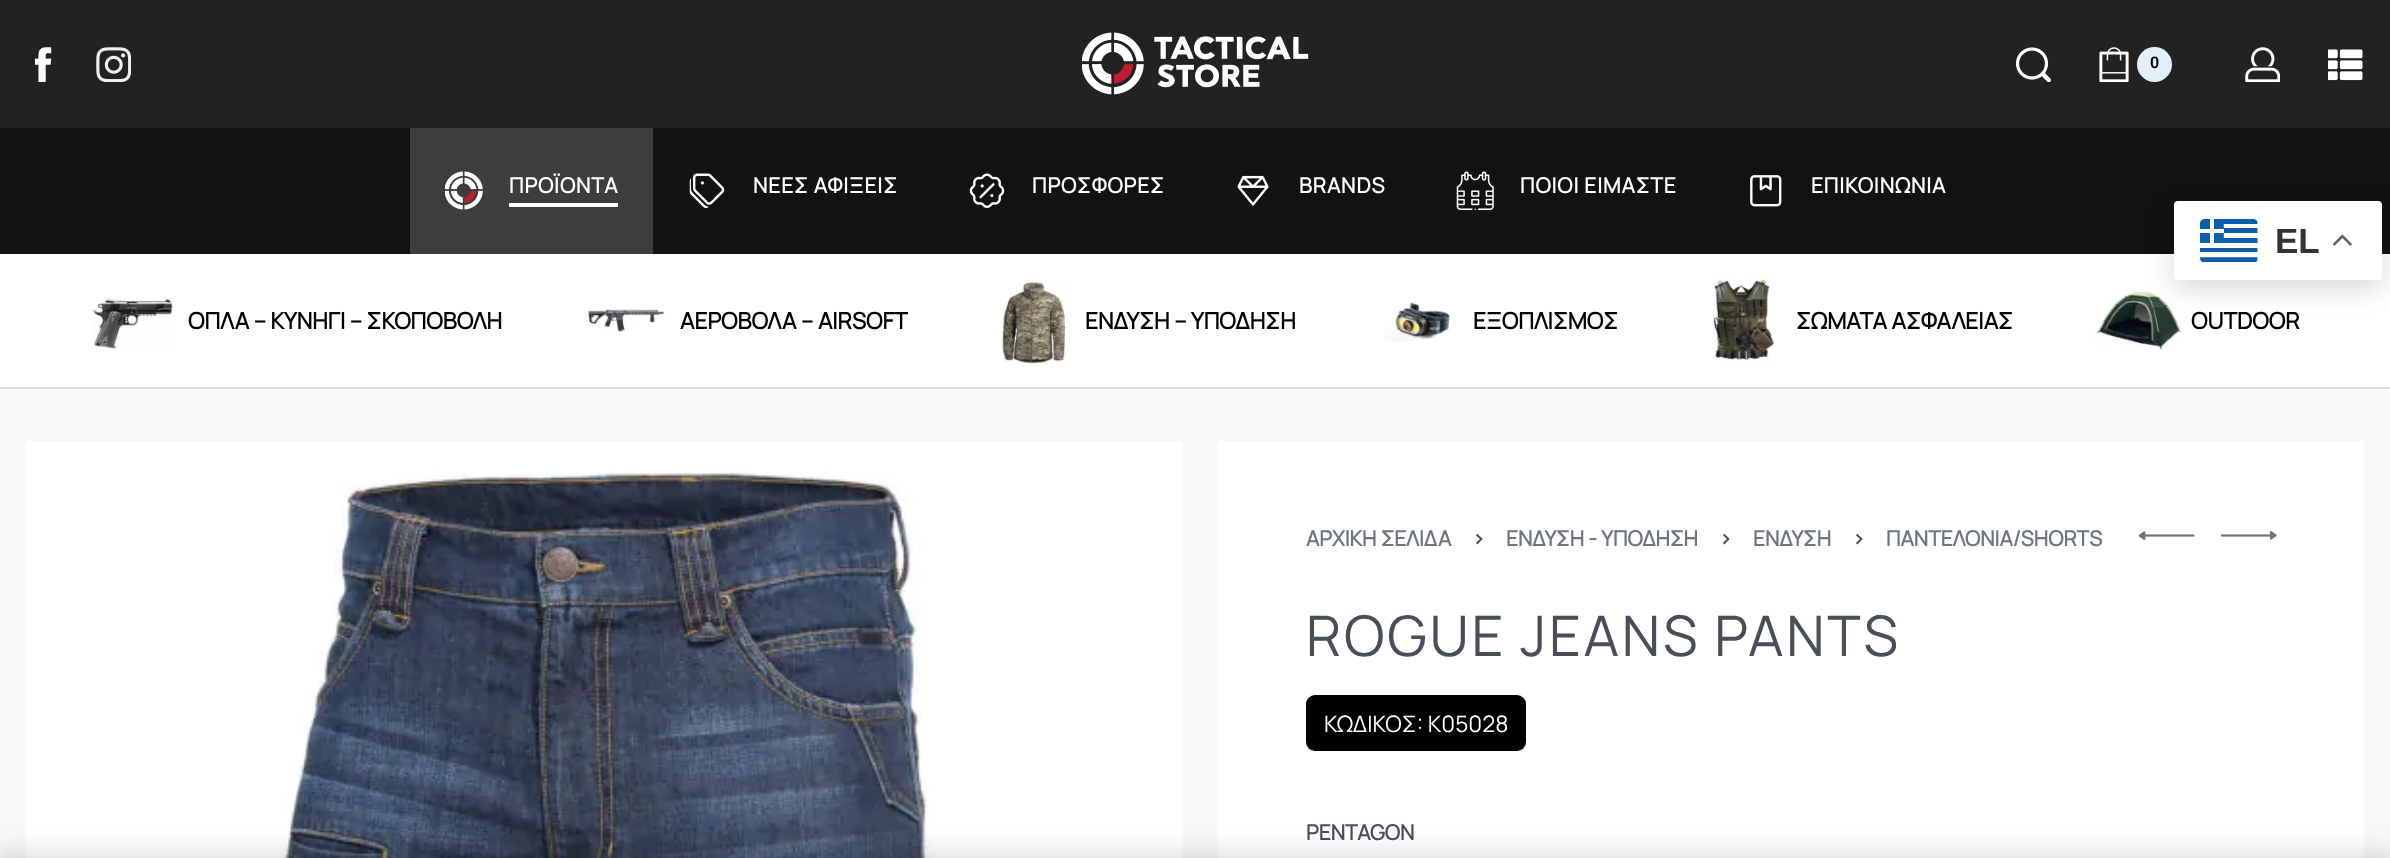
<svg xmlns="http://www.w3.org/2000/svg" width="2390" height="858">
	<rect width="100%" height="100%" fill="#F8F8F8" />
	<rect x="0" y="0" width="2390" height="128" fill="#222222" />
	<image x="35" y="47" width="17" height="35" href="assets/img1.png" />
	<image x="96" y="47" width="35" height="35" href="assets/img2.png" />
	<image x="1082" y="32" width="227" height="63" href="assets/img3.png" />
	<image x="2016" y="47" width="35" height="35" href="assets/img4.png" />
	<image x="2099" y="47" width="30" height="35" href="assets/img5.png" />
	<circle cx="2154.5" cy="64.5" r="17.5" fill="#E4F0F8" />
	<text x="2150" y="68" font-family="Roboto" font-size="16" font-weight="600" fill="#000000">0</text>
	<image x="2245" y="47" width="35" height="35" href="assets/img6.png" />
	<image x="2328" y="49" width="35" height="32" href="assets/img7.png" />
	<rect x="0" y="128" width="2390" height="126" fill="#121212" />
	<rect x="410" y="128" width="243" height="126" fill="#3D3D3D" />
	<image x="445" y="171" width="38" height="39" href="assets/img8.png" />
	<text x="509" y="193" font-family="Manrope" font-size="21" font-weight="700" letter-spacing="0.9" fill="#FFFFFF">ΠΡΟΪΟΝΤΑ</text>
	<rect x="509" y="203" width="109" height="4" fill="#FFFFFF" />
	<image x="689" y="173" width="36" height="35" href="assets/img9.png" />
	<text x="753" y="193" font-family="Manrope" font-size="21" font-weight="700" letter-spacing="0.9" fill="#FFFFFF">ΝΕΕΣ ΑΦΙΞΕΙΣ</text>
	<image x="969" y="173" width="36" height="35" href="assets/img10.png" />
	<text x="1032" y="193" font-family="Manrope" font-size="21" font-weight="700" letter-spacing="0.9" fill="#FFFFFF">ΠΡΟΣΦΟΡΕΣ</text>
	<image x="1237" y="175" width="32" height="31" href="assets/img11.png" />
	<text x="1299" y="193" font-family="Manrope" font-size="21" font-weight="700" letter-spacing="0.9" fill="#FFFFFF">BRANDS</text>
	<image x="1456" y="171" width="38" height="39" href="assets/img12.png" />
	<text x="1520" y="193" font-family="Manrope" font-size="21" font-weight="700" letter-spacing="0.9" fill="#FFFFFF">ΠΟΙΟΙ ΕΙΜΑΣΤΕ</text>
	<image x="1750" y="175" width="32" height="32" href="assets/img13.png" />
	<text x="1811" y="193" font-family="Manrope" font-size="21" font-weight="700" letter-spacing="0.9" fill="#FFFFFF">ΕΠΙΚΟΙΝΩΝΙΑ</text>
	<rect x="0" y="254" width="2390" height="133" fill="#FFFFFF" />
	<rect x="0" y="387" width="2390" height="2" fill="#DADFE2" />
	<image x="91" y="297" width="84" height="53" href="assets/img14.png" />
	<text x="188" y="329" font-family="Manrope" font-size="22.75" font-weight="700" fill="#000000">ΟΠΛΑ – ΚΥΝΗΓΙ – ΣΚΟΠΟΒΟΛΗ</text>
	<image x="586" y="308" width="79" height="24" href="assets/img15.png" />
	<text x="680" y="329" font-family="Manrope" font-size="22.75" font-weight="700" fill="#000000">ΑΕΡΟΒΟΛΑ – AIRSOFT</text>
	<image x="1001" y="280" width="66" height="84" href="assets/img16.png" />
	<text x="1085" y="329" font-family="Manrope" font-size="22.75" font-weight="700" fill="#000000">ΕΝΔΥΣΗ – ΥΠΟΔΗΣΗ</text>
	<image x="1384" y="302" width="67" height="40" href="assets/img17.png" />
	<text x="1473" y="329" font-family="Manrope" font-size="22.75" font-weight="700" fill="#000000">ΕΞΟΠΛΙΣΜΟΣ</text>
	<image x="1713" y="277" width="63" height="84" href="assets/img18.png" />
	<text x="1796" y="329" font-family="Manrope" font-size="22.75" font-weight="700" fill="#000000">ΣΩΜΑΤΑ ΑΣΦΑΛΕΙΑΣ</text>
	<image x="2095" y="290" width="87" height="60" href="assets/img19.png" />
	<text x="2191" y="329" font-family="Manrope" font-size="22.75" font-weight="700" fill="#000000">OUTDOOR</text>
	<rect x="26" y="441" width="1157" height="417" fill="#FFFFFF" />
	<image x="281" y="471" width="654" height="387" href="assets/img20.png" />
	<rect x="1218" y="441" width="1146" height="417" fill="#FFFFFF" />
	<text x="1306" y="546" font-family="Manrope" font-size="21" font-weight="700" fill="#6D757E">ΑΡΧΙΚΗ ΣΕΛΙΔΑ</text>
	<text x="1472" y="546" font-family="Manrope" font-size="21" font-weight="700" fill="#484F56">›</text>
	<text x="1506" y="546" font-family="Manrope" font-size="21" font-weight="700" fill="#6D757E">ΕΝΔΥΣΗ - ΥΠΟΔΗΣΗ</text>
	<text x="1719" y="546" font-family="Manrope" font-size="21" font-weight="700" fill="#484F56">›</text>
	<text x="1753" y="546" font-family="Manrope" font-size="21" font-weight="700" fill="#6D757E">ΕΝΔΥΣΗ</text>
	<text x="1852" y="546" font-family="Manrope" font-size="21" font-weight="700" fill="#484F56">›</text>
	<text x="1886" y="546" font-family="Manrope" font-size="21" font-weight="700" fill="#6D757E">ΠΑΝΤΕΛΟΝΙΑ/SHORTS</text>
	<image x="2139" y="531" width="56" height="9" href="assets/img21.png" />
	<image x="2221" y="531" width="56" height="9" href="assets/img22.png" />
	<text x="1306" y="656" font-family="Manrope" font-size="56" font-weight="200" letter-spacing="2.75" fill="#484F56">ROGUE JEANS PANTS</text>
	<rect x="1306" y="695" width="220" height="56" rx="9" fill="#000000" />
	<text x="1324" y="732" font-family="Manrope" font-size="22.75" font-weight="200" fill="#FFFFFF">ΚΩΔΙΚΟΣ: K05028</text>
	<text x="1306" y="840" font-family="Manrope" font-size="21" font-weight="700" fill="#484F56">PENTAGON</text>
	<rect x="2174" y="210" width="208" height="79" rx="4" fill="#000000" fill-opacity="0.15" filter="blur(13px)" />
	<rect x="2174" y="201" width="208" height="79" rx="4" fill="#FFFFFF" />
	<image x="2200" y="219" width="58" height="43" href="assets/img23.png" />
	<text x="2275" y="253" font-family="Liberation Sans" font-size="35" font-weight="700" fill="#333333">EL</text>
	<image x="2333" y="234" width="19" height="12" href="assets/img24.png" />
	<rect x="-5" y="854" width="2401" height="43" fill="#000000" fill-opacity="0.15" filter="blur(13px)" />
</svg>
